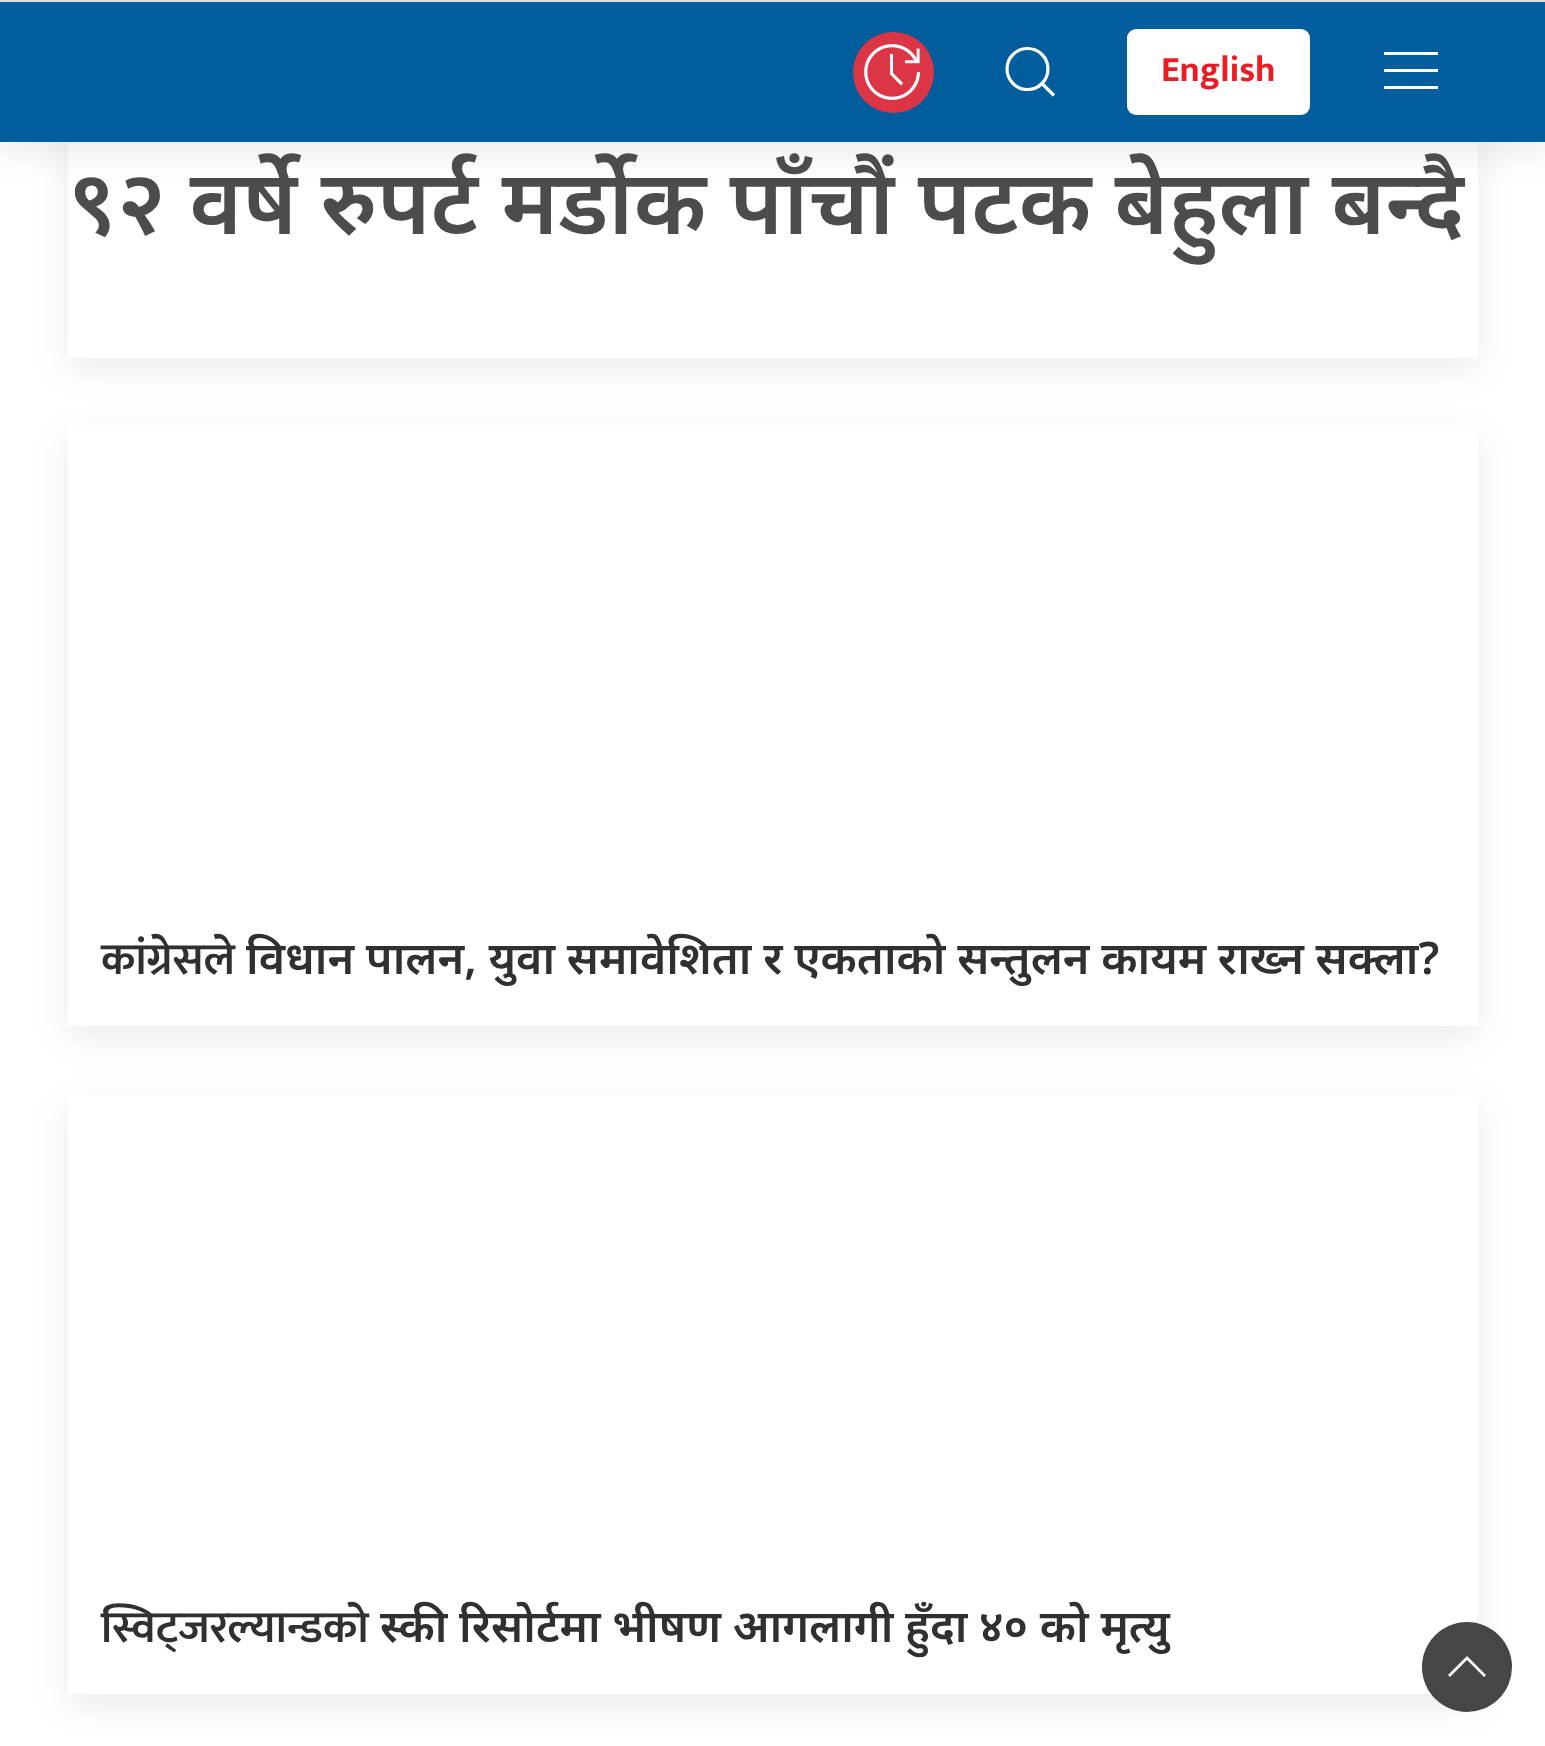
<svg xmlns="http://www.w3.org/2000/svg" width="1545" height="1746">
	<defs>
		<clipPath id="clip1"><path d="M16 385H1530V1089H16ZM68 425H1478V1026H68Z" clip-rule="evenodd" /></clipPath>
		<clipPath id="clip2"><path d="M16 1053H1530V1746H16ZM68 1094H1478V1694H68Z" clip-rule="evenodd" /></clipPath>
	</defs>
	<rect width="100%" height="100%" fill="#FFFFFF" />
	<rect x="68" y="-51" width="1410" height="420" fill="#000000" fill-opacity="0.08" filter="blur(17px)" />
	<rect x="68" y="142" width="1410" height="216" fill="#FFFFFF" />
	<rect x="0" y="11" width="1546" height="142" fill="#000000" fill-opacity="0.08" filter="blur(17px)" />
	<rect x="0" y="2" width="1545" height="140" fill="#025D9D" />
	<rect x="0" y="0" width="1545" height="2" fill="#DDDDDD" />
	<circle cx="893.5" cy="72.5" r="40.5" fill="#DC3545" />
	<image x="864" y="44" width="56" height="56" href="assets/img1.png" />
	<circle cx="1027.5" cy="69" r="20.5" fill="none" stroke="#FFFFFF" stroke-width="3.2" />
	<path d="M1042 83.5L1054 95.5Z" fill="none" stroke="#FFFFFF" stroke-width="3.2" />
	<rect x="1127" y="29" width="183" height="86" rx="9" fill="#FFFFFF" />
	<text x="1161" y="81" font-family="Mukta" font-size="36" font-weight="700" fill="#ED1C24">English</text>
	<rect x="1384" y="52" width="54" height="3" fill="#FFFFFF" />
	<rect x="1384" y="69" width="54" height="3" fill="#FFFFFF" />
	<rect x="1384" y="86" width="54" height="3" fill="#FFFFFF" />
	<text x="68" y="234" font-family="Noto Sans" font-size="90" font-weight="600" fill="#4A4C4E">९२ वर्षे रुपर्ट मर्डोक पाँचौं पटक बेहुला बन्दै</text>
	<g clip-path="url(#clip1)">
		<rect x="68" y="437" width="1410" height="600" fill="#000000" fill-opacity="0.08" filter="blur(17px)" />
	</g>
	<text x="101" y="974" font-family="Mukta" font-size="45" font-weight="600" fill="#303030">कांग्रेसले</text>
	<text x="246" y="974" font-family="Noto Sans" font-size="45" font-weight="600" fill="#303030">विधान पालन, युवा समावेशिता र एकताको सन्तुलन कायम राख्न सक्ला?</text>
	<g clip-path="url(#clip2)">
		<rect x="68" y="1105" width="1410" height="601" fill="#000000" fill-opacity="0.08" filter="blur(17px)" />
	</g>
	<text x="101" y="1642" font-family="Mukta" font-size="45" font-weight="600" fill="#303030">स्विट्जरल्यान्डको</text>
	<text x="380" y="1642" font-family="Noto Sans" font-size="45" font-weight="600" fill="#303030">स्की रिसोर्टमा भीषण आगलागी हुँदा ४० को मृत्यु</text>
	<circle cx="1467" cy="1667" r="45" fill="#464646" />
	<path d="M1449 1676L1467 1658L1485 1676" fill="none" stroke="#FFFFFF" stroke-width="2.7" />
</svg>
